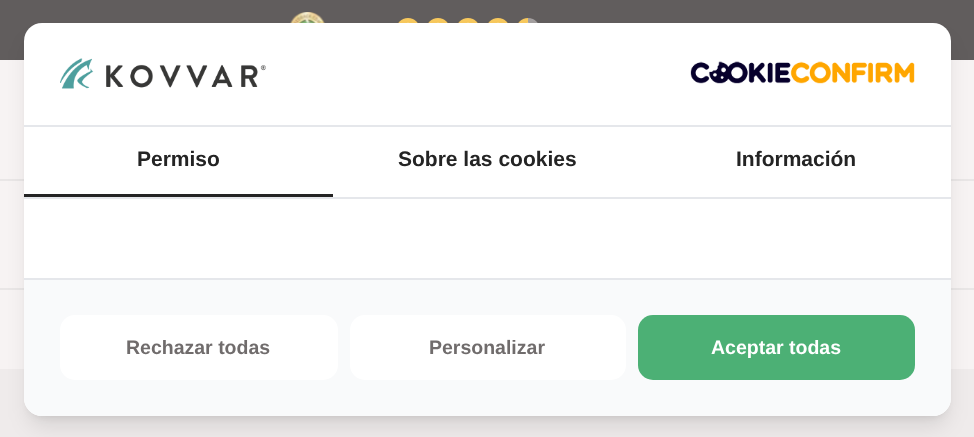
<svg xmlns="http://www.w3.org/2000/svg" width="974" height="437">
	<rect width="100%" height="100%" fill="#F7F3F3" />
	<rect x="0" y="179" width="974" height="2" fill="#E9E6E6" />
	<rect x="0" y="0" width="974" height="60" fill="#615D5D" />
	<image x="290" y="12" width="35" height="11" href="assets/img1.png" />
	<image x="398" y="18" width="20" height="5" href="assets/img2.png" />
	<image x="428" y="18" width="20" height="5" href="assets/img2.png" />
	<image x="458" y="18" width="20" height="5" href="assets/img2.png" />
	<image x="488" y="18" width="20" height="5" href="assets/img2.png" />
	<image x="518" y="18" width="20" height="5" href="assets/img3.png" />
	<rect x="0" y="288" width="974" height="2" fill="#E9E6E6" />
	<rect x="0" y="369" width="974" height="68" fill="#EFEBEB" />
	<rect x="30" y="35" width="915" height="381" rx="12" fill="#000000" fill-opacity="0.1" filter="blur(4.5px)" />
	<rect x="29" y="42" width="918" height="384" rx="14" fill="#000000" fill-opacity="0.1" filter="blur(11px)" />
	<rect x="24" y="23" width="927" height="393" rx="18" fill="#FFFFFF" />
	<rect x="24" y="125" width="927" height="2" fill="#E5E7EB" />
	<image x="60" y="58" width="206" height="31" href="assets/img4.png" />
	<image x="690" y="61" width="225" height="23" href="assets/img5.png" />
	<rect x="24" y="197" width="927" height="2" fill="#E5E7EB" />
	<rect x="24" y="194" width="309" height="3" fill="#242424" />
	<g font-family="Liberation Sans" font-size="21" font-weight="700" fill="#242424">
		<text x="137" y="166">Permiso</text>
		<text x="398" y="166">Sobre las cookies</text>
		<text x="736" y="166">Información</text>
	</g>
	<path d="M24 279H951V398C951 408 943 416 933 416H42C32 416 24 408 24 398Z" fill="#F9FAFB" />
	<rect x="24" y="278" width="927" height="2" fill="#E5E7EB" />
	<rect x="60" y="315" width="278" height="65" rx="15" fill="#FFFFFF" />
	<text x="126" y="354" font-family="Liberation Sans" font-size="19.5" font-weight="700" fill="#706C6C">Rechazar todas</text>
	<rect x="350" y="315" width="276" height="65" rx="15" fill="#FFFFFF" />
	<text x="429" y="354" font-family="Liberation Sans" font-size="19.5" font-weight="700" fill="#706C6C">Personalizar</text>
	<rect x="638" y="315" width="277" height="65" rx="15" fill="#4CB075" />
	<text x="711" y="354" font-family="Liberation Sans" font-size="19.5" font-weight="700" fill="#FFFFFF">Aceptar todas</text>
</svg>
